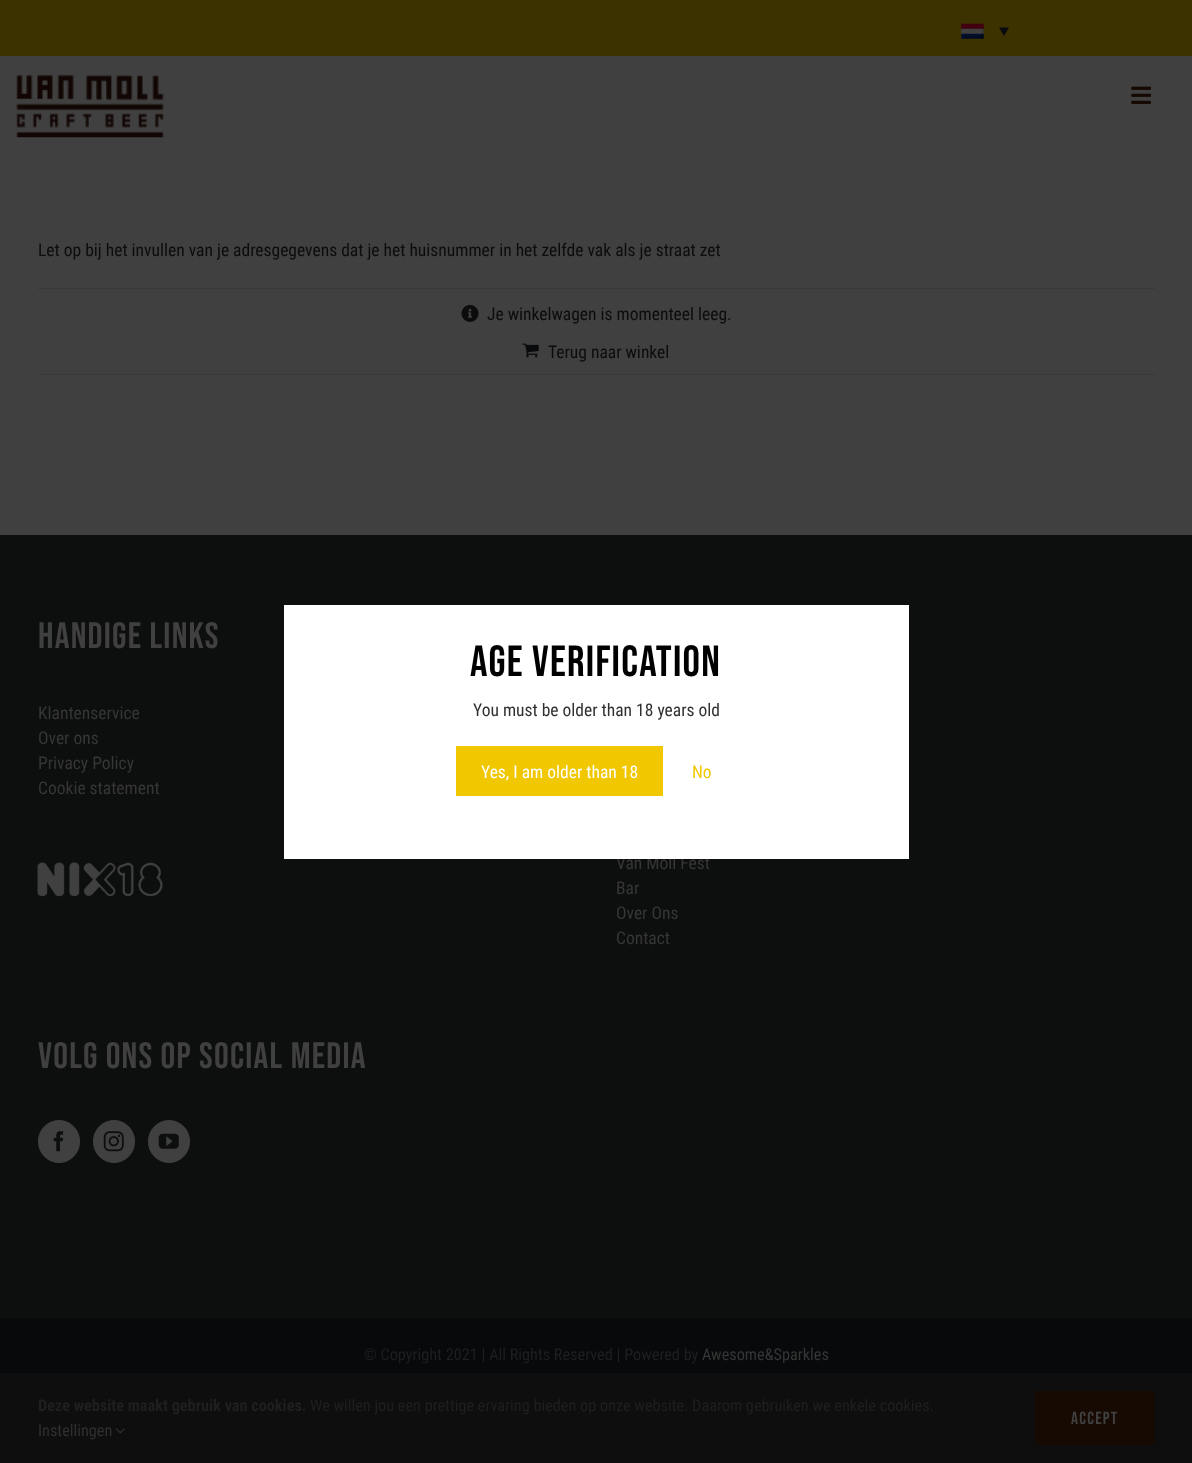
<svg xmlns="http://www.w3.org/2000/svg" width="1192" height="1463">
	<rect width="100%" height="100%" fill="#404040" />
	<rect x="0" y="0" width="1192" height="56" fill="#3C3200" />
	<image x="961" y="23" width="23" height="16" href="assets/img1.png" />
	<path d="M999 27.5H1009L1004 36Z" fill="#080A0D" />
	<image x="16" y="74" width="148" height="64" href="assets/img2.png" />
	<image x="1131" y="86" width="20" height="18" href="assets/img3.png" />
	<text x="38" y="256" font-family="Roboto Condensed" font-size="17.5" fill="#0D0C0D">Let op bij het invullen van je adresgegevens dat je het huisnummer in het zelfde vak als je straat zet</text>
	<rect x="38" y="288" width="1117" height="1" fill="#393939" />
	<image x="461" y="305" width="18" height="17" href="assets/img4.png" />
	<text x="487" y="320" font-family="Roboto Condensed" font-size="17.5" fill="#0D0C0D">Je winkelwagen is momenteel leeg.</text>
	<rect x="38" y="374" width="1117" height="1" fill="#393939" />
	<image x="522" y="343" width="17" height="15" href="assets/img5.png" />
	<text x="548" y="358" font-family="Roboto Condensed" font-size="17.5" fill="#0D0C0D">Terug naar winkel</text>
	<rect x="0" y="535" width="1192" height="783" fill="#0D0E0E" />
	<text x="38" y="648" font-family="Bebas Neue" font-size="36.75" letter-spacing="1.25" fill="#404040">HANDIGE LINKS</text>
	<g font-family="Roboto Condensed" font-size="17.5" fill="#363636">
		<text x="38" y="719">Klantenservice</text>
		<text x="38" y="744">Over ons</text>
		<text x="38" y="769">Privacy Policy</text>
		<text x="38" y="794">Cookie statement</text>
	</g>
	<image x="37" y="862" width="126" height="35" href="assets/img6.png" />
	<g font-family="Roboto Condensed" font-size="17.5" fill="#363636">
		<text x="616" y="869">Van Moll Fest</text>
		<text x="616" y="894">Bar</text>
		<text x="616" y="919">Over Ons</text>
		<text x="616" y="944">Contact</text>
	</g>
	<text x="38" y="1068" font-family="Bebas Neue" font-size="36.75" letter-spacing="1.25" fill="#404040">VOLG ONS OP SOCIAL MEDIA</text>
	<rect x="38.5" y="1120.5" width="41" height="42" rx="20.5" fill="#404040" stroke="#404040" />
	<image x="53" y="1131" width="11" height="21" href="assets/img7.png" />
	<rect x="93.5" y="1120.5" width="41" height="42" rx="20.5" fill="#404040" stroke="#404040" />
	<image x="103" y="1131" width="21" height="21" href="assets/img8.png" />
	<rect x="148.5" y="1120.5" width="41" height="42" rx="20.5" fill="#404040" stroke="#404040" />
	<image x="158" y="1133" width="21" height="16" href="assets/img9.png" />
	<rect x="0" y="1318" width="1192" height="55" fill="#07090B" />
	<text x="364" y="1360" font-family="Roboto Condensed" font-size="16.25" fill="#1E1F20">© Copyright 2021 | All Rights Reserved | Powered by</text>
	<text x="702" y="1360" font-family="Roboto Condensed" font-size="16.25" fill="#363636">Awesome&amp;Sparkles</text>
	<rect x="284" y="605" width="625" height="254" fill="#FFFFFF" />
	<text x="470" y="676" font-family="Bebas Neue" font-size="43.5" letter-spacing="1.25" fill="#000000">Age verification</text>
	<text x="473" y="716" font-family="Roboto Condensed" font-size="17.5" fill="#303030">You must be older than 18 years old</text>
	<rect x="456" y="746" width="207" height="50" fill="#F1C700" />
	<text x="481" y="778" font-family="Roboto Condensed" font-size="17.5" fill="#FFFFFF">Yes, I am older than 18</text>
	<text x="692" y="778" font-family="Roboto Condensed" font-size="17.5" fill="#F1C700">No</text>
	<rect x="0" y="1373" width="1192" height="90" fill="#0E0E0E" />
	<text x="38" y="1411" font-family="Roboto Condensed" font-size="16.25" font-weight="700" fill="#1E1F20">Deze website maakt gebruik van cookies.</text>
	<text x="310" y="1411" font-family="Roboto Condensed" font-size="16.25" fill="#1E1F20">We willen jou een prettige ervaring bieden op onze website. Daarom gebruiken we enkele cookies.</text>
	<text x="38" y="1436" font-family="Roboto Condensed" font-size="16.25" fill="#303030">Instellingen</text>
	<image x="115" y="1428" width="10" height="6" href="assets/img10.png" />
	<rect x="1035" y="1391" width="120" height="54" fill="#170A03" />
	<text x="1071" y="1424" font-family="Bebas Neue" font-size="17.5" letter-spacing="1.25" fill="#404040">Accept</text>
</svg>
